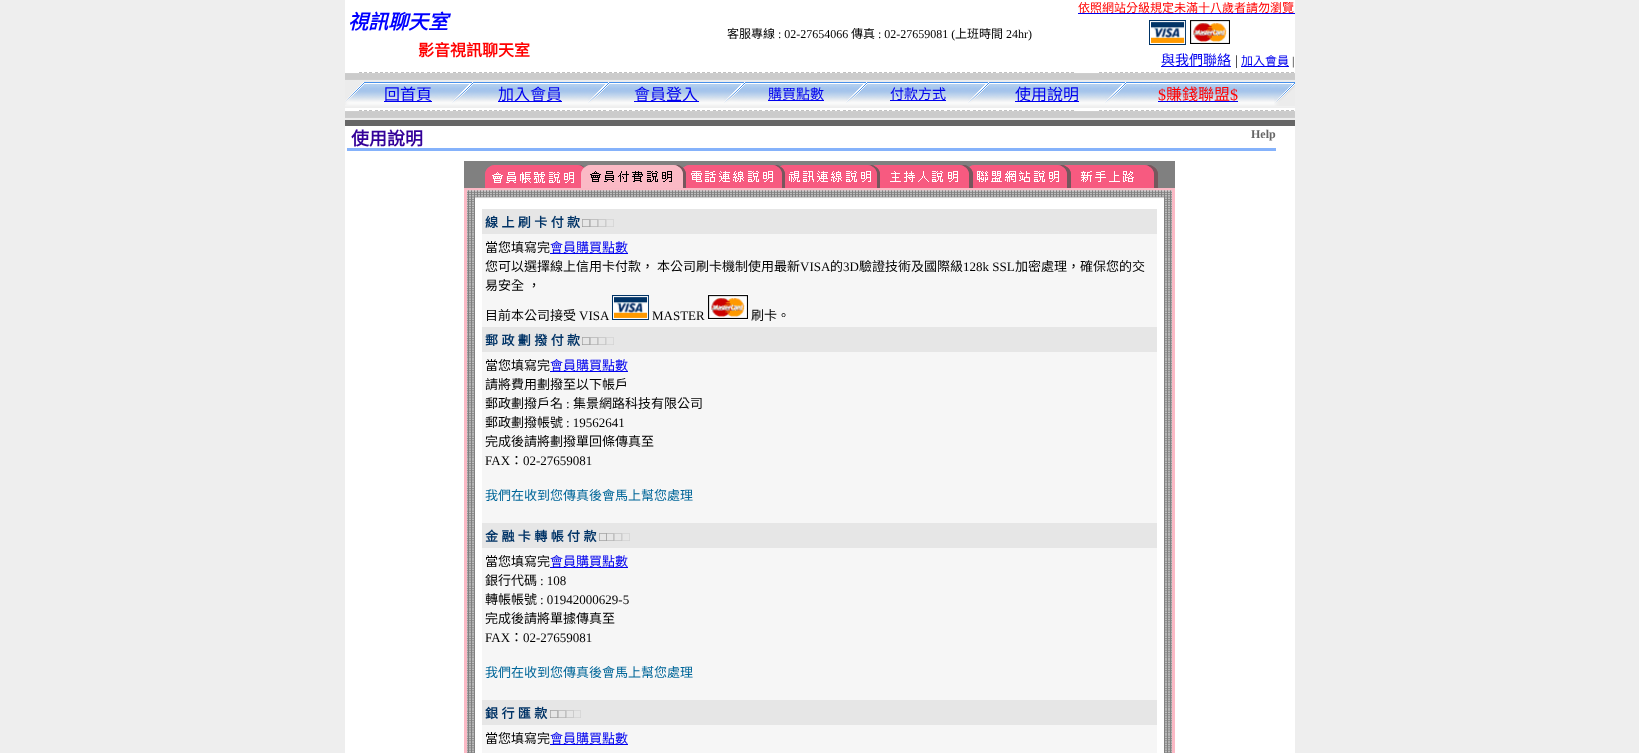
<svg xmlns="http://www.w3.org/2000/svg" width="1639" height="753">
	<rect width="100%" height="100%" fill="#EEEEEE" />
	<rect x="345" y="0" width="950" height="753" fill="#FFFFFF" />
	<text x="348" y="29" font-family="Noto Sans CJK TC" font-size="20" font-weight="700" font-style="italic" fill="#0000FF">視訊聊天室</text>
	<text x="418" y="56" font-family="Noto Sans CJK TC" font-size="16" font-weight="700" fill="#FF0000">影音視訊聊天室</text>
	<rect x="1078" y="13" width="217" height="1" fill="#0000EE" />
	<text x="1078" y="12" font-family="Noto Sans CJK TC" font-size="12" fill="#FF0000">依照網站分級規定未滿十八歲者請勿瀏覽</text>
	<text x="727" y="38" font-family="Noto Sans CJK TC" font-size="12" fill="#000000">客服專線</text>
	<text x="778" y="38" font-family="Liberation Serif" font-size="12" fill="#000000">: 02-27654066</text>
	<text x="851" y="38" font-family="Noto Sans CJK TC" font-size="12" fill="#000000">傳真</text>
	<text x="878" y="38" font-family="Liberation Serif" font-size="12" fill="#000000">: 02-27659081 (</text>
	<text x="955" y="38" font-family="Noto Sans CJK TC" font-size="12" fill="#000000">上班時間</text>
	<text x="1006" y="38" font-family="Liberation Serif" font-size="12" fill="#000000">24hr)</text>
	<image x="1149" y="20" width="37" height="25" href="assets/img1.png" />
	<image x="1190" y="20" width="40" height="24" href="assets/img2.png" />
	<rect x="1161" y="66" width="70" height="1" fill="#0000EE" />
	<text x="1161" y="65" font-family="Noto Sans CJK TC" font-size="14" fill="#0000EE">與我們聯絡</text>
	<text x="1235" y="65" font-family="Liberation Serif" font-size="14" fill="#000000">|</text>
	<text x="1241" y="65" font-family="Noto Sans CJK TC" font-size="12" fill="#0000EE">加入會員</text>
	<text x="1292" y="65" font-family="Liberation Serif" font-size="12" fill="#000000">|</text>
	<rect x="1241" y="66" width="48" height="1" fill="#0000EE" />
	<image x="359" y="72" width="935" height="1" href="assets/img3.png" />
	<image x="345" y="73" width="950" height="9" href="assets/img4.png" />
	<image x="345" y="82" width="950" height="26" href="assets/img5.png" />
	<image x="345" y="82" width="19" height="23" href="assets/img6.png" />
	<rect x="384" y="101" width="48" height="1" fill="#0000EE" />
	<text x="384" y="100" font-family="Noto Sans CJK TC" font-size="16" fill="#0000EE">回首頁</text>
	<image x="452" y="82" width="21" height="21" href="assets/img7.png" />
	<rect x="498" y="101" width="64" height="1" fill="#0000EE" />
	<text x="498" y="100" font-family="Noto Sans CJK TC" font-size="16" fill="#0000EE">加入會員</text>
	<image x="588" y="82" width="21" height="21" href="assets/img7.png" />
	<rect x="634" y="101" width="65" height="1" fill="#0000EE" />
	<text x="634" y="100" font-family="Noto Sans CJK TC" font-size="16" fill="#0000EE">會員登入</text>
	<image x="724" y="82" width="21" height="21" href="assets/img7.png" />
	<rect x="768" y="100" width="56" height="1" fill="#0000EE" />
	<text x="768" y="99" font-family="Noto Sans CJK TC" font-size="14" fill="#0000EE">購買點數</text>
	<image x="846" y="82" width="21" height="21" href="assets/img7.png" />
	<rect x="890" y="100" width="56" height="1" fill="#0000EE" />
	<text x="890" y="99" font-family="Noto Sans CJK TC" font-size="14" fill="#0000EE">付款方式</text>
	<image x="968" y="82" width="21" height="21" href="assets/img7.png" />
	<rect x="1015" y="101" width="64" height="1" fill="#0000EE" />
	<text x="1015" y="100" font-family="Noto Sans CJK TC" font-size="16" fill="#0000EE">使用說明</text>
	<image x="1105" y="82" width="21" height="21" href="assets/img7.png" />
	<rect x="1158" y="101" width="80" height="1" fill="#0000EE" />
	<text x="1158" y="100" font-family="Liberation Serif" font-size="16" fill="#FF0000">$</text>
	<text x="1166" y="100" font-family="Noto Sans CJK TC" font-size="16" fill="#FF0000">賺錢聯盟</text>
	<text x="1230" y="100" font-family="Liberation Serif" font-size="16" fill="#FF0000">$</text>
	<image x="1274" y="83" width="21" height="23" href="assets/img8.png" />
	<image x="359" y="110" width="935" height="1" href="assets/img3.png" />
	<image x="345" y="111" width="950" height="9" href="assets/img4.png" />
	<rect x="345" y="120" width="950" height="6" fill="#666666" />
	<rect x="347" y="148" width="929" height="3" fill="#85B2FB" />
	<text x="351" y="145" font-family="Noto Sans CJK TC" font-size="18" font-weight="700" fill="#330099">使用說明</text>
	<text x="1251" y="138" font-family="Liberation Serif" font-size="12" font-weight="700" fill="#666666">Help</text>
	<rect x="464" y="161" width="711" height="4" fill="#808080" />
	<image x="464" y="165" width="711" height="44" href="assets/img9.png" />
	<image x="464" y="209" width="711" height="544" href="assets/img10.png" />
	<rect x="482" y="209" width="675" height="25" fill="#E6E6E6" />
	<text x="485" y="227" word-spacing="0.5" font-family="Noto Sans CJK TC" font-size="13" font-weight="700" fill="#003366">線 上 刷 卡 付 款</text>
	<text x="582" y="227" font-family="Liberation Serif" font-size="13" fill="#868686">□</text>
	<text x="590" y="227" font-family="Liberation Serif" font-size="13" fill="#A1A1A1">□</text>
	<text x="598" y="227" font-family="Liberation Serif" font-size="13" fill="#B6B6B6">□</text>
	<text x="606" y="227" font-family="Liberation Serif" font-size="13" fill="#CCCCCC">□</text>
	<rect x="482" y="234" width="675" height="93" fill="#F6F6F6" />
	<text x="485" y="252" font-family="Noto Sans CJK TC" font-size="13" fill="#000000">當您填寫完</text>
	<rect x="550" y="253" width="78" height="1" fill="#0000EE" />
	<text x="550" y="252" font-family="Noto Sans CJK TC" font-size="13" fill="#0000EE">會員購買點數</text>
	<g font-family="Noto Sans CJK TC" font-size="13" fill="#000000">
		<text x="485" y="271">您可以選擇線上信用卡付款，</text>
		<text x="657" y="271">本公司刷卡機制使用最新</text>
	</g>
	<text x="800" y="271" font-family="Liberation Serif" font-size="13" fill="#000000">VISA</text>
	<text x="830" y="271" font-family="Noto Sans CJK TC" font-size="13" fill="#000000">的</text>
	<text x="843" y="271" font-family="Liberation Serif" font-size="13" fill="#000000">3D</text>
	<text x="859" y="271" font-family="Noto Sans CJK TC" font-size="13" fill="#000000">驗證技術及國際級</text>
	<text x="963" y="271" font-family="Liberation Serif" font-size="13" fill="#000000">128k SSL</text>
	<g font-family="Noto Sans CJK TC" font-size="13" fill="#000000">
		<text x="1015" y="271">加密處理，確保您的交</text>
		<text x="485" y="290" word-spacing="0.5">易安全 ，</text>
		<text x="485" y="320">目前本公司接受</text>
	</g>
	<text x="579" y="320" font-family="Liberation Serif" font-size="13" fill="#000000">VISA</text>
	<image x="612" y="295" width="37" height="25" href="assets/img1.png" />
	<text x="652" y="320" font-family="Liberation Serif" font-size="13" fill="#000000">MASTER</text>
	<image x="708" y="294" width="40" height="26" href="assets/img11.png" />
	<text x="751" y="320" font-family="Noto Sans CJK TC" font-size="13" fill="#000000">刷卡。</text>
	<rect x="482" y="327" width="675" height="25" fill="#E6E6E6" />
	<text x="485" y="345" word-spacing="0.5" font-family="Noto Sans CJK TC" font-size="13" font-weight="700" fill="#003366">郵 政 劃 撥 付 款</text>
	<text x="582" y="345" font-family="Liberation Serif" font-size="13" fill="#868686">□</text>
	<text x="590" y="345" font-family="Liberation Serif" font-size="13" fill="#A1A1A1">□</text>
	<text x="598" y="345" font-family="Liberation Serif" font-size="13" fill="#B6B6B6">□</text>
	<text x="606" y="345" font-family="Liberation Serif" font-size="13" fill="#CCCCCC">□</text>
	<rect x="482" y="352" width="675" height="171" fill="#F6F6F6" />
	<text x="485" y="370" font-family="Noto Sans CJK TC" font-size="13" fill="#000000">當您填寫完</text>
	<rect x="550" y="371" width="78" height="1" fill="#0000EE" />
	<text x="550" y="370" font-family="Noto Sans CJK TC" font-size="13" fill="#0000EE">會員購買點數</text>
	<g font-family="Noto Sans CJK TC" font-size="13" fill="#000000">
		<text x="485" y="389">請將費用劃撥至以下帳戶</text>
		<text x="485" y="408">郵政劃撥戶名</text>
	</g>
	<text x="566" y="408" font-family="Liberation Serif" font-size="13" fill="#000000">:</text>
	<g font-family="Noto Sans CJK TC" font-size="13" fill="#000000">
		<text x="573" y="408">集景網路科技有限公司</text>
		<text x="485" y="427">郵政劃撥帳號</text>
	</g>
	<text x="566" y="427" font-family="Liberation Serif" font-size="13" fill="#000000">: 19562641</text>
	<text x="485" y="446" font-family="Noto Sans CJK TC" font-size="13" fill="#000000">完成後請將劃撥單回條傳真至</text>
	<text x="485" y="465" font-family="Liberation Serif" font-size="13" fill="#000000">FAX</text>
	<text x="510" y="465" font-family="Noto Sans CJK TC" font-size="13" fill="#000000">：</text>
	<text x="523" y="465" font-family="Liberation Serif" font-size="13" fill="#000000">02-27659081</text>
	<text x="485" y="500" font-family="Noto Sans CJK TC" font-size="13" fill="#006699">我們在收到您傳真後會馬上幫您處理</text>
	<rect x="482" y="523" width="675" height="25" fill="#E6E6E6" />
	<text x="485" y="541" word-spacing="0.5" font-family="Noto Sans CJK TC" font-size="13" font-weight="700" fill="#003366">金 融 卡 轉 帳 付 款</text>
	<text x="599" y="541" font-family="Liberation Serif" font-size="13" fill="#868686">□</text>
	<text x="606" y="541" font-family="Liberation Serif" font-size="13" fill="#A1A1A1">□</text>
	<text x="614" y="541" font-family="Liberation Serif" font-size="13" fill="#B6B6B6">□</text>
	<text x="622" y="541" font-family="Liberation Serif" font-size="13" fill="#CCCCCC">□</text>
	<rect x="482" y="548" width="675" height="152" fill="#F6F6F6" />
	<text x="485" y="566" font-family="Noto Sans CJK TC" font-size="13" fill="#000000">當您填寫完</text>
	<rect x="550" y="567" width="78" height="1" fill="#0000EE" />
	<text x="550" y="566" font-family="Noto Sans CJK TC" font-size="13" fill="#0000EE">會員購買點數</text>
	<text x="485" y="585" font-family="Noto Sans CJK TC" font-size="13" fill="#000000">銀行代碼</text>
	<text x="540" y="585" font-family="Liberation Serif" font-size="13" fill="#000000">: 108</text>
	<text x="485" y="604" font-family="Noto Sans CJK TC" font-size="13" fill="#000000">轉帳帳號</text>
	<text x="540" y="604" font-family="Liberation Serif" font-size="13" fill="#000000">: 01942000629-5</text>
	<text x="485" y="623" font-family="Noto Sans CJK TC" font-size="13" fill="#000000">完成後請將單據傳真至</text>
	<text x="485" y="642" font-family="Liberation Serif" font-size="13" fill="#000000">FAX</text>
	<text x="510" y="642" font-family="Noto Sans CJK TC" font-size="13" fill="#000000">：</text>
	<text x="523" y="642" font-family="Liberation Serif" font-size="13" fill="#000000">02-27659081</text>
	<text x="485" y="677" font-family="Noto Sans CJK TC" font-size="13" fill="#006699">我們在收到您傳真後會馬上幫您處理</text>
	<rect x="482" y="700" width="675" height="25" fill="#E6E6E6" />
	<text x="485" y="718" word-spacing="0.5" font-family="Noto Sans CJK TC" font-size="13" font-weight="700" fill="#003366">銀 行 匯 款</text>
	<text x="550" y="718" font-family="Liberation Serif" font-size="13" fill="#868686">□</text>
	<text x="558" y="718" font-family="Liberation Serif" font-size="13" fill="#A1A1A1">□</text>
	<text x="566" y="718" font-family="Liberation Serif" font-size="13" fill="#B6B6B6">□</text>
	<text x="573" y="718" font-family="Liberation Serif" font-size="13" fill="#CCCCCC">□</text>
	<rect x="482" y="725" width="675" height="28" fill="#F6F6F6" />
	<text x="485" y="743" font-family="Noto Sans CJK TC" font-size="13" fill="#000000">當您填寫完</text>
	<rect x="550" y="744" width="78" height="1" fill="#0000EE" />
	<text x="550" y="743" font-family="Noto Sans CJK TC" font-size="13" fill="#0000EE">會員購買點數</text>
</svg>
